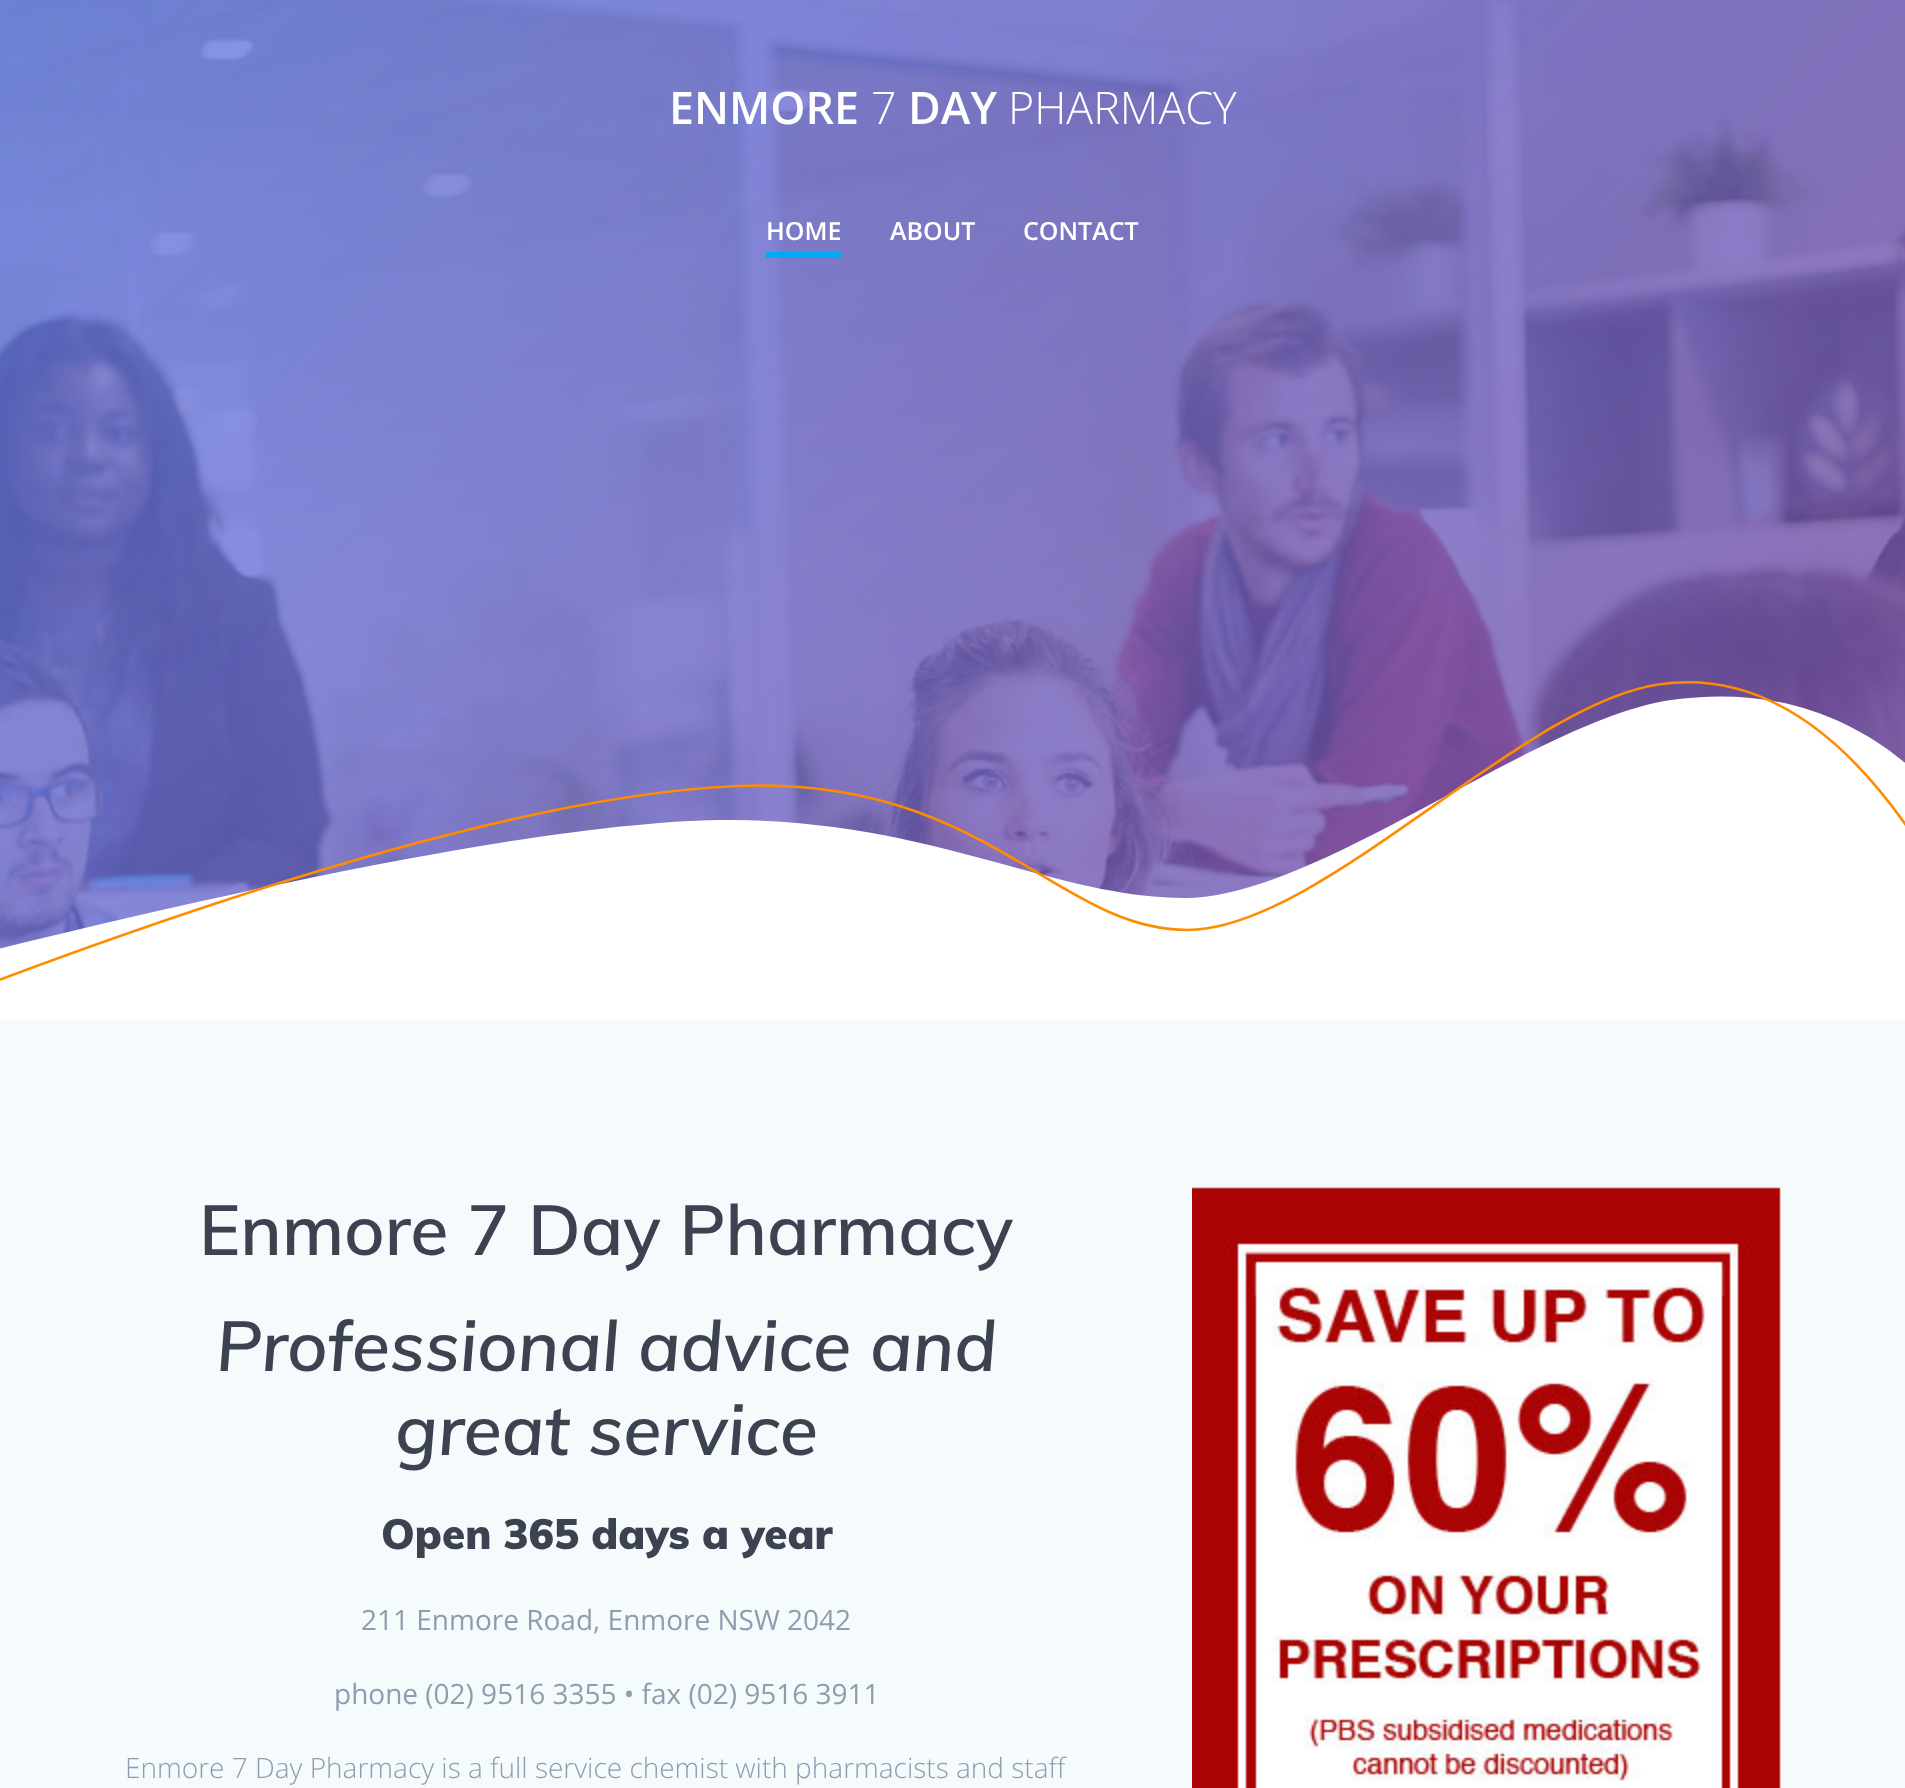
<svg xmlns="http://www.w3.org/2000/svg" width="1905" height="1788">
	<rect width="100%" height="100%" fill="#FFFFFF" />
	<image x="0" y="0" width="1905" height="949" href="assets/img1.png" />
	<text x="669" y="124" font-family="Open Sans" font-size="44.75" font-weight="600" fill="#FFFFFF">ENMORE</text>
	<text x="871" y="124" font-family="Open Sans" font-size="44.75" font-weight="300" fill="#FFFFFF">7</text>
	<text x="908" y="124" font-family="Open Sans" font-size="44.75" font-weight="600" fill="#FFFFFF">DAY</text>
	<text x="1008" y="124" font-family="Open Sans" font-size="44.75" font-weight="300" fill="#FFFFFF">PHARMACY</text>
	<rect x="766" y="252" width="76" height="6" fill="#03A9F4" />
	<g font-family="Open Sans" font-size="25" font-weight="600" fill="#FFFFFF">
		<text x="766" y="240">HOME</text>
		<text x="890" y="240">ABOUT</text>
		<text x="1023" y="240">CONTACT</text>
	</g>
	<path d="M-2 949C353 862 599 819 734 820C937 822 1054 898 1185 898C1317 898 1535 720 1671 700C1762 687 1842 709 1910 767V1024L-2 1029Z" fill="#FFFFFF" />
	<path d="M-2.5 980.5C325 858 571.5 793 737 786C985 775.5 1055.5 930 1187.5 930C1319 930 1522 704 1658.5 684.5C1749.5 671 1833.5 720 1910 831" fill="none" stroke="#FF8C00" stroke-width="2.6" />
	<rect x="0" y="1020" width="1905" height="768" fill="#F5FAFD" />
	<text x="199" y="1255" font-family="Muli" font-size="70" font-weight="600" fill="#3C424F">Enmore 7 Day Pharmacy</text>
	<image x="1192" y="1187" width="589" height="601" href="assets/img2.png" />
	<g font-family="Muli" font-size="70" font-weight="600" font-style="italic" fill="#3C424F">
		<text x="216" y="1371">Professional advice and</text>
		<text x="395" y="1455">great service</text>
	</g>
	<text x="381" y="1549" font-family="Muli" font-size="42" font-weight="900" fill="#3C424F">Open 365 days a year</text>
	<g font-family="Open Sans" font-size="28" fill="#8E9DAE">
		<text x="361" y="1630">211 Enmore Road, Enmore NSW 2042</text>
		<text x="334" y="1704">phone (02) 9516 3355 • fax (02) 9516 3911</text>
	</g>
	<text x="125" y="1778" font-family="Open Sans" font-size="28" font-weight="300" fill="#8E9DAE">Enmore 7 Day Pharmacy is a full service chemist with pharmacists and staff</text>
</svg>
